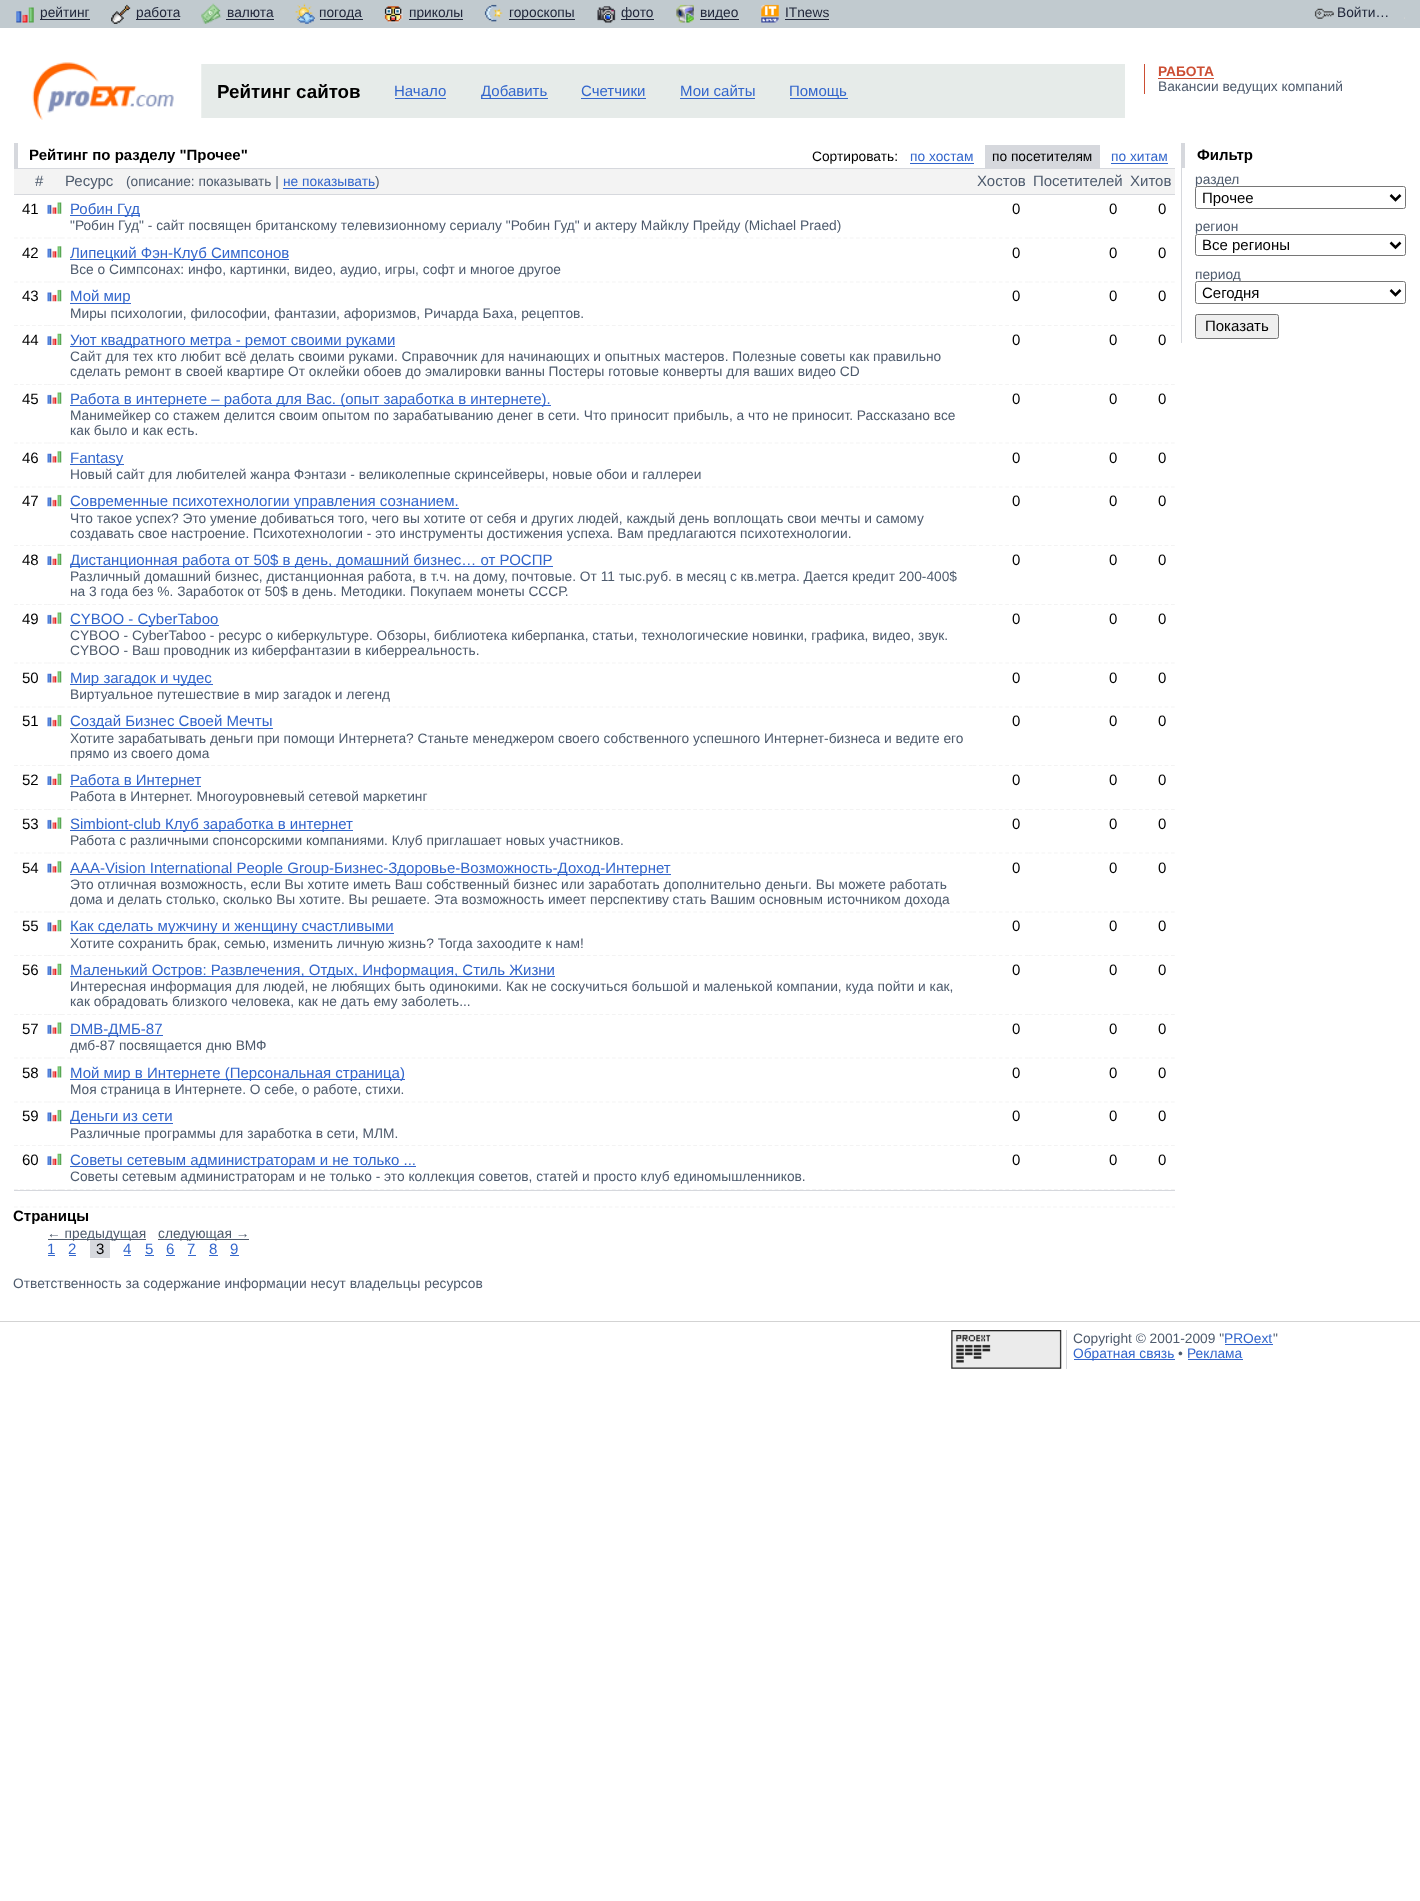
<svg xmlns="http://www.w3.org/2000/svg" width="1420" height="1901">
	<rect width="100%" height="100%" fill="#FFFFFF" />
	<rect x="0" y="0" width="1420" height="28" fill="#C1CACF" />
	<image x="16" y="7" width="18" height="16" href="assets/img1.png" />
	<rect x="40" y="19" width="50" height="1" fill="#21273B" />
	<text x="40" y="17" font-family="Liberation Sans" font-size="13.75" fill="#21273B">рейтинг</text>
	<image x="111" y="4" width="20" height="20" href="assets/img2.png" />
	<rect x="136" y="19" width="44" height="1" fill="#21273B" />
	<text x="136" y="17" font-family="Liberation Sans" font-size="13.75" fill="#21273B">работа</text>
	<image x="201" y="3" width="21" height="21" href="assets/img3.png" />
	<text x="227" y="17" font-family="Liberation Sans" font-size="13.75" fill="#21273B">валюта</text>
	<rect x="226" y="19" width="48" height="1" fill="#21273B" />
	<image x="295" y="3" width="20" height="21" href="assets/img4.png" />
	<rect x="320" y="19" width="43" height="1" fill="#21273B" />
	<text x="319" y="17" font-family="Liberation Sans" font-size="13.75" fill="#21273B">погода</text>
	<image x="384" y="6" width="19" height="17" href="assets/img5.png" />
	<rect x="409" y="19" width="54" height="1" fill="#21273B" />
	<text x="409" y="17" font-family="Liberation Sans" font-size="13.75" fill="#21273B">приколы</text>
	<image x="484" y="4" width="19" height="18" href="assets/img6.png" />
	<rect x="509" y="19" width="66" height="1" fill="#21273B" />
	<text x="509" y="17" font-family="Liberation Sans" font-size="13.75" fill="#21273B">гороскопы</text>
	<image x="597" y="6" width="19" height="17" href="assets/img7.png" />
	<rect x="621" y="19" width="33" height="1" fill="#21273B" />
	<text x="621" y="17" font-family="Liberation Sans" font-size="13.75" fill="#21273B">фото</text>
	<image x="676" y="4" width="18" height="19" href="assets/img8.png" />
	<rect x="700" y="19" width="39" height="1" fill="#21273B" />
	<text x="700" y="17" font-family="Liberation Sans" font-size="13.75" fill="#21273B">видео</text>
	<image x="761" y="4" width="18" height="19" href="assets/img9.png" />
	<text x="785" y="17" font-family="Liberation Sans" font-size="13.75" fill="#21273B">ITnews</text>
	<rect x="785" y="19" width="44" height="1" fill="#21273B" />
	<image x="1314" y="8" width="20" height="11" href="assets/img10.png" />
	<text x="1337" y="17" font-family="Liberation Sans" font-size="13.75" fill="#21273B">Войти…</text>
	<image x="1404" y="17" width="1" height="2" href="assets/img11.png" />
	<rect x="201" y="64" width="924" height="54" fill="#E6EBE9" />
	<image x="32" y="62" width="170" height="58" href="assets/img12.png" />
	<text x="217" y="98" font-family="Liberation Sans" font-size="18.75" font-weight="700" fill="#000000">Рейтинг сайтов</text>
	<text x="394" y="96" font-family="Liberation Sans" font-size="15" fill="#3366CC">Начало</text>
	<rect x="395" y="98" width="51" height="1" fill="#3366CC" />
	<rect x="481" y="98" width="67" height="1" fill="#3366CC" />
	<g font-family="Liberation Sans" font-size="15" fill="#3366CC">
		<text x="481" y="96">Добавить</text>
		<text x="581" y="96">Счетчики</text>
	</g>
	<rect x="581" y="98" width="65" height="1" fill="#3366CC" />
	<text x="680" y="96" font-family="Liberation Sans" font-size="15" fill="#3366CC">Мои сайты</text>
	<rect x="680" y="98" width="75" height="1" fill="#3366CC" />
	<rect x="790" y="98" width="58" height="1" fill="#3366CC" />
	<text x="789" y="96" font-family="Liberation Sans" font-size="15" fill="#3366CC">Помощь</text>
	<rect x="1144" y="64" width="1" height="30" fill="#CC4E33" />
	<text x="1158" y="76" font-family="Liberation Sans" font-size="13.75" font-weight="700" fill="#CC4E33">РАБОТА</text>
	<rect x="1158" y="78" width="56" height="1" fill="#CC4E33" />
	<text x="1158" y="91" font-family="Liberation Sans" font-size="13.75" fill="#4E5B6D">Вакансии ведущих компаний</text>
	<rect x="14" y="143" width="4" height="25" fill="#D6D8DD" />
	<text x="29" y="160" font-family="Liberation Sans" font-size="15" font-weight="700" fill="#000000">Рейтинг по разделу "Прочее"</text>
	<text x="812" y="161" font-family="Liberation Sans" font-size="13.75" fill="#000000">Сортировать:</text>
	<text x="910" y="161" font-family="Liberation Sans" font-size="13.75" fill="#3366CC">по хостам</text>
	<rect x="910" y="163" width="64" height="1" fill="#3366CC" />
	<rect x="985" y="145" width="115" height="23" fill="#D6D8DD" />
	<text x="992" y="161" font-family="Liberation Sans" font-size="13.75" fill="#000000">по посетителям</text>
	<text x="1111" y="161" font-family="Liberation Sans" font-size="13.75" fill="#3366CC">по хитам</text>
	<rect x="1111" y="163" width="57" height="1" fill="#3366CC" />
	<rect x="14" y="169" width="1161" height="25" fill="#F3F3F3" />
	<rect x="14" y="168" width="1161" height="1" fill="#D6D8DD" />
	<rect x="14" y="194" width="1161" height="1" fill="#D6D8DD" />
	<g font-family="Liberation Sans" font-size="15" fill="#4E5B6D">
		<text x="35" y="186">#</text>
		<text x="65" y="186">Ресурс</text>
	</g>
	<text x="126" y="186" font-family="Liberation Sans" font-size="13.75" fill="#4E5B6D">(описание: показывать |</text>
	<text x="283" y="186" font-family="Liberation Sans" font-size="13.75" fill="#3366CC">не показывать</text>
	<rect x="283" y="188" width="92" height="1" fill="#3366CC" />
	<text x="375" y="186" font-family="Liberation Sans" font-size="13.75" fill="#4E5B6D">)</text>
	<g font-family="Liberation Sans" font-size="15" fill="#4E5B6D">
		<text x="977" y="186">Хостов</text>
		<text x="1033" y="186">Посетителей</text>
		<text x="1130" y="186">Хитов</text>
	</g>
	<path d="M14 238H47.5" fill="none" stroke="#F3F3F3" stroke-width="1.2" stroke-dasharray="3.75 2.25" />
	<text x="22" y="214" font-family="Liberation Sans" font-size="15" fill="#000000">41</text>
	<path d="M47.5 238H51M52.5 238H56M57.5 238H61" fill="none" stroke="#F3F3F3" stroke-width="1.2" />
	<image x="47" y="202" width="15" height="12" href="assets/img13.png" />
	<path d="M61 238H972.5" fill="none" stroke="#F3F3F3" stroke-width="1.2" stroke-dasharray="3.75 2.51" />
	<rect x="70" y="215" width="70" height="1" fill="#3366CC" />
	<text x="70" y="214" font-family="Liberation Sans" font-size="15" fill="#3366CC">Робин Гуд</text>
	<text x="70" y="230" font-family="Liberation Sans" font-size="13.75" fill="#4E5B6D">"Робин Гуд" - сайт посвящен британскому телевизионному сериалу "Робин Гуд" и актеру Майклу Прейду (Michael Praed)</text>
	<path d="M972.5 238H1029" fill="none" stroke="#F3F3F3" stroke-width="1.2" stroke-dasharray="3.75 2.81" />
	<text x="1012" y="214" font-family="Liberation Sans" font-size="15" fill="#000000">0</text>
	<path d="M1029 238H1126" fill="none" stroke="#F3F3F3" stroke-width="1.2" stroke-dasharray="3.75 2.5" />
	<text x="1109" y="214" font-family="Liberation Sans" font-size="15" fill="#000000">0</text>
	<path d="M1126 238H1175" fill="none" stroke="#F3F3F3" stroke-width="1.2" stroke-dasharray="3.75 2.68" />
	<text x="1158" y="214" font-family="Liberation Sans" font-size="15" fill="#000000">0</text>
	<path d="M14 282H47.5" fill="none" stroke="#F3F3F3" stroke-width="1.2" stroke-dasharray="3.75 2.25" />
	<text x="22" y="258" font-family="Liberation Sans" font-size="15" fill="#000000">42</text>
	<path d="M47.5 282H51M52.5 282H56M57.5 282H61" fill="none" stroke="#F3F3F3" stroke-width="1.2" />
	<image x="47" y="246" width="15" height="12" href="assets/img14.png" />
	<path d="M61 282H972.5" fill="none" stroke="#F3F3F3" stroke-width="1.2" stroke-dasharray="3.75 2.51" />
	<rect x="70" y="259" width="219" height="1" fill="#3366CC" />
	<text x="70" y="258" font-family="Liberation Sans" font-size="15" fill="#3366CC">Липецкий Фэн-Клуб Симпсонов</text>
	<text x="70" y="274" font-family="Liberation Sans" font-size="13.75" fill="#4E5B6D">Все о Симпсонах: инфо, картинки, видео, аудио, игры, софт и многое другое</text>
	<path d="M972.5 282H1029" fill="none" stroke="#F3F3F3" stroke-width="1.2" stroke-dasharray="3.75 2.81" />
	<text x="1012" y="258" font-family="Liberation Sans" font-size="15" fill="#000000">0</text>
	<path d="M1029 282H1126" fill="none" stroke="#F3F3F3" stroke-width="1.2" stroke-dasharray="3.75 2.5" />
	<text x="1109" y="258" font-family="Liberation Sans" font-size="15" fill="#000000">0</text>
	<path d="M1126 282H1175" fill="none" stroke="#F3F3F3" stroke-width="1.2" stroke-dasharray="3.75 2.68" />
	<text x="1158" y="258" font-family="Liberation Sans" font-size="15" fill="#000000">0</text>
	<path d="M14 325.5H47.5" fill="none" stroke="#F3F3F3" stroke-width="1.2" stroke-dasharray="3.75 2.25" />
	<text x="22" y="301" font-family="Liberation Sans" font-size="15" fill="#000000">43</text>
	<path d="M47.5 325.5H51M52.5 325.5H56M57.5 325.5H61" fill="none" stroke="#F3F3F3" stroke-width="1.2" />
	<image x="47" y="289" width="15" height="13" href="assets/img15.png" />
	<path d="M61 325.5H972.5" fill="none" stroke="#F3F3F3" stroke-width="1.2" stroke-dasharray="3.75 2.51" />
	<rect x="70" y="303" width="61" height="1" fill="#3366CC" />
	<text x="70" y="301" font-family="Liberation Sans" font-size="15" fill="#3366CC">Мой мир</text>
	<text x="70" y="318" font-family="Liberation Sans" font-size="13.75" fill="#4E5B6D">Миры психологии, философии, фантазии, афоризмов, Ричарда Баха, рецептов.</text>
	<path d="M972.5 325.5H1029" fill="none" stroke="#F3F3F3" stroke-width="1.2" stroke-dasharray="3.75 2.81" />
	<text x="1012" y="301" font-family="Liberation Sans" font-size="15" fill="#000000">0</text>
	<path d="M1029 325.5H1126" fill="none" stroke="#F3F3F3" stroke-width="1.2" stroke-dasharray="3.75 2.5" />
	<text x="1109" y="301" font-family="Liberation Sans" font-size="15" fill="#000000">0</text>
	<path d="M1126 325.5H1175" fill="none" stroke="#F3F3F3" stroke-width="1.2" stroke-dasharray="3.75 2.68" />
	<text x="1158" y="301" font-family="Liberation Sans" font-size="15" fill="#000000">0</text>
	<path d="M14 384.5H47.5" fill="none" stroke="#F3F3F3" stroke-width="1.2" stroke-dasharray="3.75 2.25" />
	<text x="22" y="345" font-family="Liberation Sans" font-size="15" fill="#000000">44</text>
	<path d="M47.5 384.5H51M52.5 384.5H56M57.5 384.5H61" fill="none" stroke="#F3F3F3" stroke-width="1.2" />
	<image x="47" y="333" width="15" height="12" href="assets/img16.png" />
	<path d="M61 384.5H972.5" fill="none" stroke="#F3F3F3" stroke-width="1.2" stroke-dasharray="3.75 2.51" />
	<rect x="70" y="346" width="325" height="1" fill="#3366CC" />
	<text x="70" y="345" font-family="Liberation Sans" font-size="15" fill="#3366CC">Уют квадратного метра - ремот своими руками</text>
	<g font-family="Liberation Sans" font-size="13.75" fill="#4E5B6D">
		<text x="70" y="361">Сайт для тех кто любит всё делать своими руками. Справочник для начинающих и опытных мастеров. Полезные советы как правильно</text>
		<text x="70" y="376">сделать ремонт в своей квартире От оклейки обоев до эмалировки ванны Постеры готовые конверты для ваших видео CD</text>
	</g>
	<path d="M972.5 384.5H1029" fill="none" stroke="#F3F3F3" stroke-width="1.2" stroke-dasharray="3.75 2.81" />
	<text x="1012" y="345" font-family="Liberation Sans" font-size="15" fill="#000000">0</text>
	<path d="M1029 384.5H1126" fill="none" stroke="#F3F3F3" stroke-width="1.2" stroke-dasharray="3.75 2.5" />
	<text x="1109" y="345" font-family="Liberation Sans" font-size="15" fill="#000000">0</text>
	<path d="M1126 384.5H1175" fill="none" stroke="#F3F3F3" stroke-width="1.2" stroke-dasharray="3.75 2.68" />
	<text x="1158" y="345" font-family="Liberation Sans" font-size="15" fill="#000000">0</text>
	<path d="M14 443H47.5" fill="none" stroke="#F3F3F3" stroke-width="1.2" stroke-dasharray="3.75 2.25" />
	<text x="22" y="404" font-family="Liberation Sans" font-size="15" fill="#000000">45</text>
	<path d="M47.5 443H51M52.5 443H56M57.5 443H61" fill="none" stroke="#F3F3F3" stroke-width="1.2" />
	<image x="47" y="392" width="15" height="12" href="assets/img13.png" />
	<path d="M61 443H972.5" fill="none" stroke="#F3F3F3" stroke-width="1.2" stroke-dasharray="3.75 2.51" />
	<rect x="70" y="405" width="481" height="1" fill="#3366CC" />
	<text x="70" y="404" font-family="Liberation Sans" font-size="15" fill="#3366CC">Работа в интернете – работа для Вас. (опыт заработка в интернете).</text>
	<g font-family="Liberation Sans" font-size="13.75" fill="#4E5B6D">
		<text x="70" y="420">Манимейкер со стажем делится своим опытом по зарабатыванию денег в сети. Что приносит прибыль, а что не приносит. Рассказано все</text>
		<text x="70" y="435">как было и как есть.</text>
	</g>
	<path d="M972.5 443H1029" fill="none" stroke="#F3F3F3" stroke-width="1.2" stroke-dasharray="3.75 2.81" />
	<text x="1012" y="404" font-family="Liberation Sans" font-size="15" fill="#000000">0</text>
	<path d="M1029 443H1126" fill="none" stroke="#F3F3F3" stroke-width="1.2" stroke-dasharray="3.75 2.5" />
	<text x="1109" y="404" font-family="Liberation Sans" font-size="15" fill="#000000">0</text>
	<path d="M1126 443H1175" fill="none" stroke="#F3F3F3" stroke-width="1.2" stroke-dasharray="3.75 2.68" />
	<text x="1158" y="404" font-family="Liberation Sans" font-size="15" fill="#000000">0</text>
	<path d="M14 487H47.5" fill="none" stroke="#F3F3F3" stroke-width="1.2" stroke-dasharray="3.75 2.25" />
	<text x="22" y="463" font-family="Liberation Sans" font-size="15" fill="#000000">46</text>
	<path d="M47.5 487H51M52.5 487H56M57.5 487H61" fill="none" stroke="#F3F3F3" stroke-width="1.2" />
	<image x="47" y="451" width="15" height="12" href="assets/img14.png" />
	<path d="M61 487H972.5" fill="none" stroke="#F3F3F3" stroke-width="1.2" stroke-dasharray="3.75 2.51" />
	<rect x="70" y="464" width="54" height="1" fill="#3366CC" />
	<text x="70" y="463" font-family="Liberation Sans" font-size="15" fill="#3366CC">Fantasy</text>
	<text x="70" y="479" font-family="Liberation Sans" font-size="13.75" fill="#4E5B6D">Новый сайт для любителей жанра Фэнтази - великолепные скринсейверы, новые обои и галлереи</text>
	<path d="M972.5 487H1029" fill="none" stroke="#F3F3F3" stroke-width="1.2" stroke-dasharray="3.75 2.81" />
	<text x="1012" y="463" font-family="Liberation Sans" font-size="15" fill="#000000">0</text>
	<path d="M1029 487H1126" fill="none" stroke="#F3F3F3" stroke-width="1.2" stroke-dasharray="3.75 2.5" />
	<text x="1109" y="463" font-family="Liberation Sans" font-size="15" fill="#000000">0</text>
	<path d="M1126 487H1175" fill="none" stroke="#F3F3F3" stroke-width="1.2" stroke-dasharray="3.75 2.68" />
	<text x="1158" y="463" font-family="Liberation Sans" font-size="15" fill="#000000">0</text>
	<path d="M14 545.5H47.5" fill="none" stroke="#F3F3F3" stroke-width="1.2" stroke-dasharray="3.75 2.25" />
	<text x="22" y="506" font-family="Liberation Sans" font-size="15" fill="#000000">47</text>
	<path d="M47.5 545.5H51M52.5 545.5H56M57.5 545.5H61" fill="none" stroke="#F3F3F3" stroke-width="1.2" />
	<image x="47" y="494" width="15" height="13" href="assets/img15.png" />
	<path d="M61 545.5H972.5" fill="none" stroke="#F3F3F3" stroke-width="1.2" stroke-dasharray="3.75 2.51" />
	<rect x="70" y="508" width="389" height="1" fill="#3366CC" />
	<text x="70" y="506" font-family="Liberation Sans" font-size="15" fill="#3366CC">Современные психотехнологии управления сознанием.</text>
	<g font-family="Liberation Sans" font-size="13.75" fill="#4E5B6D">
		<text x="70" y="523">Что такое успех? Это умение добиваться того, чего вы хотите от себя и других людей, каждый день воплощать свои мечты и самому</text>
		<text x="70" y="538">создавать свое настроение. Психотехнологии - это инструменты достижения успеха. Вам предлагаются психотехнологии.</text>
	</g>
	<path d="M972.5 545.5H1029" fill="none" stroke="#F3F3F3" stroke-width="1.2" stroke-dasharray="3.75 2.81" />
	<text x="1012" y="506" font-family="Liberation Sans" font-size="15" fill="#000000">0</text>
	<path d="M1029 545.5H1126" fill="none" stroke="#F3F3F3" stroke-width="1.2" stroke-dasharray="3.75 2.5" />
	<text x="1109" y="506" font-family="Liberation Sans" font-size="15" fill="#000000">0</text>
	<path d="M1126 545.5H1175" fill="none" stroke="#F3F3F3" stroke-width="1.2" stroke-dasharray="3.75 2.68" />
	<text x="1158" y="506" font-family="Liberation Sans" font-size="15" fill="#000000">0</text>
	<path d="M14 604.5H47.5" fill="none" stroke="#F3F3F3" stroke-width="1.2" stroke-dasharray="3.75 2.25" />
	<text x="22" y="565" font-family="Liberation Sans" font-size="15" fill="#000000">48</text>
	<path d="M47.5 604.5H51M52.5 604.5H56M57.5 604.5H61" fill="none" stroke="#F3F3F3" stroke-width="1.2" />
	<image x="47" y="553" width="15" height="12" href="assets/img16.png" />
	<path d="M61 604.5H972.5" fill="none" stroke="#F3F3F3" stroke-width="1.2" stroke-dasharray="3.75 2.51" />
	<rect x="70" y="566" width="483" height="1" fill="#3366CC" />
	<text x="70" y="565" font-family="Liberation Sans" font-size="15" fill="#3366CC">Дистанционная работа от 50$ в день, домашний бизнес… от РОСПР</text>
	<g font-family="Liberation Sans" font-size="13.75" fill="#4E5B6D">
		<text x="70" y="581">Различный домашний бизнес, дистанционная работа, в т.ч. на дому, почтовые. От 11 тыс.руб. в месяц с кв.метра. Дается кредит 200-400$</text>
		<text x="70" y="596">на 3 года без %. Заработок от 50$ в день. Методики. Покупаем монеты СССР.</text>
	</g>
	<path d="M972.5 604.5H1029" fill="none" stroke="#F3F3F3" stroke-width="1.2" stroke-dasharray="3.75 2.81" />
	<text x="1012" y="565" font-family="Liberation Sans" font-size="15" fill="#000000">0</text>
	<path d="M1029 604.5H1126" fill="none" stroke="#F3F3F3" stroke-width="1.2" stroke-dasharray="3.75 2.5" />
	<text x="1109" y="565" font-family="Liberation Sans" font-size="15" fill="#000000">0</text>
	<path d="M1126 604.5H1175" fill="none" stroke="#F3F3F3" stroke-width="1.2" stroke-dasharray="3.75 2.68" />
	<text x="1158" y="565" font-family="Liberation Sans" font-size="15" fill="#000000">0</text>
	<path d="M14 663H47.5" fill="none" stroke="#F3F3F3" stroke-width="1.2" stroke-dasharray="3.75 2.25" />
	<text x="22" y="624" font-family="Liberation Sans" font-size="15" fill="#000000">49</text>
	<path d="M47.5 663H51M52.5 663H56M57.5 663H61" fill="none" stroke="#F3F3F3" stroke-width="1.2" />
	<image x="47" y="612" width="15" height="12" href="assets/img13.png" />
	<path d="M61 663H972.5" fill="none" stroke="#F3F3F3" stroke-width="1.2" stroke-dasharray="3.75 2.51" />
	<rect x="70" y="625" width="149" height="1" fill="#3366CC" />
	<text x="70" y="624" font-family="Liberation Sans" font-size="15" fill="#3366CC">CYBOO - CyberTaboo</text>
	<g font-family="Liberation Sans" font-size="13.75" fill="#4E5B6D">
		<text x="70" y="640">CYBOO - CyberTaboo - ресурс о киберкультуре. Обзоры, библиотека киберпанка, статьи, технологические новинки, графика, видео, звук.</text>
		<text x="70" y="655">CYBOO - Ваш проводник из киберфантазии в киберреальность.</text>
	</g>
	<path d="M972.5 663H1029" fill="none" stroke="#F3F3F3" stroke-width="1.2" stroke-dasharray="3.75 2.81" />
	<text x="1012" y="624" font-family="Liberation Sans" font-size="15" fill="#000000">0</text>
	<path d="M1029 663H1126" fill="none" stroke="#F3F3F3" stroke-width="1.2" stroke-dasharray="3.75 2.5" />
	<text x="1109" y="624" font-family="Liberation Sans" font-size="15" fill="#000000">0</text>
	<path d="M1126 663H1175" fill="none" stroke="#F3F3F3" stroke-width="1.2" stroke-dasharray="3.75 2.68" />
	<text x="1158" y="624" font-family="Liberation Sans" font-size="15" fill="#000000">0</text>
	<path d="M14 707H47.5" fill="none" stroke="#F3F3F3" stroke-width="1.2" stroke-dasharray="3.75 2.25" />
	<text x="22" y="683" font-family="Liberation Sans" font-size="15" fill="#000000">50</text>
	<path d="M47.5 707H51M52.5 707H56M57.5 707H61" fill="none" stroke="#F3F3F3" stroke-width="1.2" />
	<image x="47" y="671" width="15" height="12" href="assets/img14.png" />
	<path d="M61 707H972.5" fill="none" stroke="#F3F3F3" stroke-width="1.2" stroke-dasharray="3.75 2.51" />
	<rect x="70" y="684" width="143" height="1" fill="#3366CC" />
	<text x="70" y="683" font-family="Liberation Sans" font-size="15" fill="#3366CC">Мир загадок и чудес</text>
	<text x="70" y="699" font-family="Liberation Sans" font-size="13.75" fill="#4E5B6D">Виртуальное путешествие в мир загадок и легенд</text>
	<path d="M972.5 707H1029" fill="none" stroke="#F3F3F3" stroke-width="1.2" stroke-dasharray="3.75 2.81" />
	<text x="1012" y="683" font-family="Liberation Sans" font-size="15" fill="#000000">0</text>
	<path d="M1029 707H1126" fill="none" stroke="#F3F3F3" stroke-width="1.2" stroke-dasharray="3.75 2.5" />
	<text x="1109" y="683" font-family="Liberation Sans" font-size="15" fill="#000000">0</text>
	<path d="M1126 707H1175" fill="none" stroke="#F3F3F3" stroke-width="1.2" stroke-dasharray="3.75 2.68" />
	<text x="1158" y="683" font-family="Liberation Sans" font-size="15" fill="#000000">0</text>
	<path d="M14 765.5H47.5" fill="none" stroke="#F3F3F3" stroke-width="1.2" stroke-dasharray="3.75 2.25" />
	<text x="22" y="726" font-family="Liberation Sans" font-size="15" fill="#000000">51</text>
	<path d="M47.5 765.5H51M52.5 765.5H56M57.5 765.5H61" fill="none" stroke="#F3F3F3" stroke-width="1.2" />
	<image x="47" y="714" width="15" height="13" href="assets/img15.png" />
	<path d="M61 765.5H972.5" fill="none" stroke="#F3F3F3" stroke-width="1.2" stroke-dasharray="3.75 2.51" />
	<rect x="70" y="728" width="203" height="1" fill="#3366CC" />
	<text x="70" y="726" font-family="Liberation Sans" font-size="15" fill="#3366CC">Создай Бизнес Своей Мечты</text>
	<g font-family="Liberation Sans" font-size="13.75" fill="#4E5B6D">
		<text x="70" y="743">Хотите зарабатывать деньги при помощи Интернета? Станьте менеджером своего собственного успешного Интернет-бизнеса и ведите его</text>
		<text x="70" y="758">прямо из своего дома</text>
	</g>
	<path d="M972.5 765.5H1029" fill="none" stroke="#F3F3F3" stroke-width="1.2" stroke-dasharray="3.75 2.81" />
	<text x="1012" y="726" font-family="Liberation Sans" font-size="15" fill="#000000">0</text>
	<path d="M1029 765.5H1126" fill="none" stroke="#F3F3F3" stroke-width="1.2" stroke-dasharray="3.75 2.5" />
	<text x="1109" y="726" font-family="Liberation Sans" font-size="15" fill="#000000">0</text>
	<path d="M1126 765.5H1175" fill="none" stroke="#F3F3F3" stroke-width="1.2" stroke-dasharray="3.75 2.68" />
	<text x="1158" y="726" font-family="Liberation Sans" font-size="15" fill="#000000">0</text>
	<path d="M14 809.5H47.5" fill="none" stroke="#F3F3F3" stroke-width="1.2" stroke-dasharray="3.75 2.25" />
	<text x="22" y="785" font-family="Liberation Sans" font-size="15" fill="#000000">52</text>
	<path d="M47.5 809.5H51M52.5 809.5H56M57.5 809.5H61" fill="none" stroke="#F3F3F3" stroke-width="1.2" />
	<image x="47" y="773" width="15" height="12" href="assets/img16.png" />
	<path d="M61 809.5H972.5" fill="none" stroke="#F3F3F3" stroke-width="1.2" stroke-dasharray="3.75 2.51" />
	<rect x="70" y="786" width="131" height="1" fill="#3366CC" />
	<text x="70" y="785" font-family="Liberation Sans" font-size="15" fill="#3366CC">Работа в Интернет</text>
	<text x="70" y="801" font-family="Liberation Sans" font-size="13.75" fill="#4E5B6D">Работа в Интернет. Многоуровневый сетевой маркетинг</text>
	<path d="M972.5 809.5H1029" fill="none" stroke="#F3F3F3" stroke-width="1.2" stroke-dasharray="3.75 2.81" />
	<text x="1012" y="785" font-family="Liberation Sans" font-size="15" fill="#000000">0</text>
	<path d="M1029 809.5H1126" fill="none" stroke="#F3F3F3" stroke-width="1.2" stroke-dasharray="3.75 2.5" />
	<text x="1109" y="785" font-family="Liberation Sans" font-size="15" fill="#000000">0</text>
	<path d="M1126 809.5H1175" fill="none" stroke="#F3F3F3" stroke-width="1.2" stroke-dasharray="3.75 2.68" />
	<text x="1158" y="785" font-family="Liberation Sans" font-size="15" fill="#000000">0</text>
	<path d="M14 853H47.5" fill="none" stroke="#F3F3F3" stroke-width="1.2" stroke-dasharray="3.75 2.25" />
	<text x="22" y="829" font-family="Liberation Sans" font-size="15" fill="#000000">53</text>
	<path d="M47.5 853H51M52.5 853H56M57.5 853H61" fill="none" stroke="#F3F3F3" stroke-width="1.2" />
	<image x="47" y="817" width="15" height="12" href="assets/img13.png" />
	<path d="M61 853H972.5" fill="none" stroke="#F3F3F3" stroke-width="1.2" stroke-dasharray="3.75 2.51" />
	<rect x="70" y="830" width="283" height="1" fill="#3366CC" />
	<text x="70" y="829" font-family="Liberation Sans" font-size="15" fill="#3366CC">Simbiont-club Клуб заработка в интернет</text>
	<text x="70" y="845" font-family="Liberation Sans" font-size="13.75" fill="#4E5B6D">Работа с различными спонсорскими компаниями. Клуб приглашает новых участников.</text>
	<path d="M972.5 853H1029" fill="none" stroke="#F3F3F3" stroke-width="1.2" stroke-dasharray="3.75 2.81" />
	<text x="1012" y="829" font-family="Liberation Sans" font-size="15" fill="#000000">0</text>
	<path d="M1029 853H1126" fill="none" stroke="#F3F3F3" stroke-width="1.2" stroke-dasharray="3.75 2.5" />
	<text x="1109" y="829" font-family="Liberation Sans" font-size="15" fill="#000000">0</text>
	<path d="M1126 853H1175" fill="none" stroke="#F3F3F3" stroke-width="1.2" stroke-dasharray="3.75 2.68" />
	<text x="1158" y="829" font-family="Liberation Sans" font-size="15" fill="#000000">0</text>
	<path d="M14 912H47.5" fill="none" stroke="#F3F3F3" stroke-width="1.2" stroke-dasharray="3.75 2.25" />
	<text x="22" y="873" font-family="Liberation Sans" font-size="15" fill="#000000">54</text>
	<path d="M47.5 912H51M52.5 912H56M57.5 912H61" fill="none" stroke="#F3F3F3" stroke-width="1.2" />
	<image x="47" y="861" width="15" height="12" href="assets/img14.png" />
	<path d="M61 912H972.5" fill="none" stroke="#F3F3F3" stroke-width="1.2" stroke-dasharray="3.75 2.51" />
	<rect x="70" y="874" width="601" height="1" fill="#3366CC" />
	<text x="70" y="873" font-family="Liberation Sans" font-size="15" fill="#3366CC">ААА-Vision International People Group-Бизнес-Здоровье-Возможность-Доход-Интернет</text>
	<g font-family="Liberation Sans" font-size="13.75" fill="#4E5B6D">
		<text x="70" y="889">Это отличная возможность, если Вы хотите иметь Ваш собственный бизнес или заработать дополнительно деньги. Вы можете работать</text>
		<text x="70" y="904">дома и делать столько, сколько Вы хотите. Вы решаете. Эта возможность имеет перспективу стать Вашим основным источником дохода</text>
	</g>
	<path d="M972.5 912H1029" fill="none" stroke="#F3F3F3" stroke-width="1.2" stroke-dasharray="3.75 2.81" />
	<text x="1012" y="873" font-family="Liberation Sans" font-size="15" fill="#000000">0</text>
	<path d="M1029 912H1126" fill="none" stroke="#F3F3F3" stroke-width="1.2" stroke-dasharray="3.75 2.5" />
	<text x="1109" y="873" font-family="Liberation Sans" font-size="15" fill="#000000">0</text>
	<path d="M1126 912H1175" fill="none" stroke="#F3F3F3" stroke-width="1.2" stroke-dasharray="3.75 2.68" />
	<text x="1158" y="873" font-family="Liberation Sans" font-size="15" fill="#000000">0</text>
	<path d="M14 955.5H47.5" fill="none" stroke="#F3F3F3" stroke-width="1.2" stroke-dasharray="3.75 2.25" />
	<text x="22" y="931" font-family="Liberation Sans" font-size="15" fill="#000000">55</text>
	<path d="M47.5 955.5H51M52.5 955.5H56M57.5 955.5H61" fill="none" stroke="#F3F3F3" stroke-width="1.2" />
	<image x="47" y="919" width="15" height="13" href="assets/img15.png" />
	<path d="M61 955.5H972.5" fill="none" stroke="#F3F3F3" stroke-width="1.2" stroke-dasharray="3.75 2.51" />
	<rect x="70" y="933" width="324" height="1" fill="#3366CC" />
	<text x="70" y="931" font-family="Liberation Sans" font-size="15" fill="#3366CC">Как сделать мужчину и женщину счастливыми</text>
	<text x="70" y="948" font-family="Liberation Sans" font-size="13.75" fill="#4E5B6D">Хотите сохранить брак, семью, изменить личную жизнь? Тогда захоодите к нам!</text>
	<path d="M972.5 955.5H1029" fill="none" stroke="#F3F3F3" stroke-width="1.2" stroke-dasharray="3.75 2.81" />
	<text x="1012" y="931" font-family="Liberation Sans" font-size="15" fill="#000000">0</text>
	<path d="M1029 955.5H1126" fill="none" stroke="#F3F3F3" stroke-width="1.2" stroke-dasharray="3.75 2.5" />
	<text x="1109" y="931" font-family="Liberation Sans" font-size="15" fill="#000000">0</text>
	<path d="M1126 955.5H1175" fill="none" stroke="#F3F3F3" stroke-width="1.2" stroke-dasharray="3.75 2.68" />
	<text x="1158" y="931" font-family="Liberation Sans" font-size="15" fill="#000000">0</text>
	<path d="M14 1014.5H47.5" fill="none" stroke="#F3F3F3" stroke-width="1.2" stroke-dasharray="3.75 2.25" />
	<text x="22" y="975" font-family="Liberation Sans" font-size="15" fill="#000000">56</text>
	<path d="M47.5 1014.5H51M52.5 1014.5H56M57.5 1014.5H61" fill="none" stroke="#F3F3F3" stroke-width="1.2" />
	<image x="47" y="963" width="15" height="12" href="assets/img16.png" />
	<path d="M61 1014.5H972.5" fill="none" stroke="#F3F3F3" stroke-width="1.2" stroke-dasharray="3.75 2.51" />
	<rect x="70" y="976" width="485" height="1" fill="#3366CC" />
	<text x="70" y="975" font-family="Liberation Sans" font-size="15" fill="#3366CC">Маленький Остров: Развлечения, Отдых, Информация, Стиль Жизни</text>
	<g font-family="Liberation Sans" font-size="13.75" fill="#4E5B6D">
		<text x="70" y="991">Интересная информация для людей, не любящих быть одинокими. Как не соскучиться большой и маленькой компании, куда пойти и как,</text>
		<text x="70" y="1006">как обрадовать близкого человека, как не дать ему заболеть...</text>
	</g>
	<path d="M972.5 1014.5H1029" fill="none" stroke="#F3F3F3" stroke-width="1.2" stroke-dasharray="3.75 2.81" />
	<text x="1012" y="975" font-family="Liberation Sans" font-size="15" fill="#000000">0</text>
	<path d="M1029 1014.5H1126" fill="none" stroke="#F3F3F3" stroke-width="1.2" stroke-dasharray="3.75 2.5" />
	<text x="1109" y="975" font-family="Liberation Sans" font-size="15" fill="#000000">0</text>
	<path d="M1126 1014.5H1175" fill="none" stroke="#F3F3F3" stroke-width="1.2" stroke-dasharray="3.75 2.68" />
	<text x="1158" y="975" font-family="Liberation Sans" font-size="15" fill="#000000">0</text>
	<path d="M14 1058H47.5" fill="none" stroke="#F3F3F3" stroke-width="1.2" stroke-dasharray="3.75 2.25" />
	<text x="22" y="1034" font-family="Liberation Sans" font-size="15" fill="#000000">57</text>
	<path d="M47.5 1058H51M52.5 1058H56M57.5 1058H61" fill="none" stroke="#F3F3F3" stroke-width="1.2" />
	<image x="47" y="1022" width="15" height="12" href="assets/img13.png" />
	<path d="M61 1058H972.5" fill="none" stroke="#F3F3F3" stroke-width="1.2" stroke-dasharray="3.75 2.51" />
	<rect x="70" y="1035" width="93" height="1" fill="#3366CC" />
	<text x="70" y="1034" font-family="Liberation Sans" font-size="15" fill="#3366CC">DMB-ДМБ-87</text>
	<text x="70" y="1050" font-family="Liberation Sans" font-size="13.75" fill="#4E5B6D">дмб-87 посвящается дню ВМФ</text>
	<path d="M972.5 1058H1029" fill="none" stroke="#F3F3F3" stroke-width="1.2" stroke-dasharray="3.75 2.81" />
	<text x="1012" y="1034" font-family="Liberation Sans" font-size="15" fill="#000000">0</text>
	<path d="M1029 1058H1126" fill="none" stroke="#F3F3F3" stroke-width="1.2" stroke-dasharray="3.75 2.5" />
	<text x="1109" y="1034" font-family="Liberation Sans" font-size="15" fill="#000000">0</text>
	<path d="M1126 1058H1175" fill="none" stroke="#F3F3F3" stroke-width="1.2" stroke-dasharray="3.75 2.68" />
	<text x="1158" y="1034" font-family="Liberation Sans" font-size="15" fill="#000000">0</text>
	<path d="M14 1102H47.5" fill="none" stroke="#F3F3F3" stroke-width="1.2" stroke-dasharray="3.75 2.25" />
	<text x="22" y="1078" font-family="Liberation Sans" font-size="15" fill="#000000">58</text>
	<path d="M47.5 1102H51M52.5 1102H56M57.5 1102H61" fill="none" stroke="#F3F3F3" stroke-width="1.2" />
	<image x="47" y="1066" width="15" height="12" href="assets/img14.png" />
	<path d="M61 1102H972.5" fill="none" stroke="#F3F3F3" stroke-width="1.2" stroke-dasharray="3.75 2.51" />
	<rect x="70" y="1079" width="335" height="1" fill="#3366CC" />
	<text x="70" y="1078" font-family="Liberation Sans" font-size="15" fill="#3366CC">Мой мир в Интернете (Персональная страница)</text>
	<text x="70" y="1094" font-family="Liberation Sans" font-size="13.75" fill="#4E5B6D">Моя страница в Интернете. О себе, о работе, стихи.</text>
	<path d="M972.5 1102H1029" fill="none" stroke="#F3F3F3" stroke-width="1.2" stroke-dasharray="3.75 2.81" />
	<text x="1012" y="1078" font-family="Liberation Sans" font-size="15" fill="#000000">0</text>
	<path d="M1029 1102H1126" fill="none" stroke="#F3F3F3" stroke-width="1.2" stroke-dasharray="3.75 2.5" />
	<text x="1109" y="1078" font-family="Liberation Sans" font-size="15" fill="#000000">0</text>
	<path d="M1126 1102H1175" fill="none" stroke="#F3F3F3" stroke-width="1.2" stroke-dasharray="3.75 2.68" />
	<text x="1158" y="1078" font-family="Liberation Sans" font-size="15" fill="#000000">0</text>
	<path d="M14 1145.5H47.5" fill="none" stroke="#F3F3F3" stroke-width="1.2" stroke-dasharray="3.75 2.25" />
	<text x="22" y="1121" font-family="Liberation Sans" font-size="15" fill="#000000">59</text>
	<path d="M47.5 1145.5H51M52.5 1145.5H56M57.5 1145.5H61" fill="none" stroke="#F3F3F3" stroke-width="1.2" />
	<image x="47" y="1109" width="15" height="13" href="assets/img15.png" />
	<path d="M61 1145.5H972.5" fill="none" stroke="#F3F3F3" stroke-width="1.2" stroke-dasharray="3.75 2.51" />
	<rect x="70" y="1123" width="103" height="1" fill="#3366CC" />
	<text x="70" y="1121" font-family="Liberation Sans" font-size="15" fill="#3366CC">Деньги из сети</text>
	<text x="70" y="1138" font-family="Liberation Sans" font-size="13.75" fill="#4E5B6D">Различные программы для заработка в сети, МЛМ.</text>
	<path d="M972.5 1145.5H1029" fill="none" stroke="#F3F3F3" stroke-width="1.2" stroke-dasharray="3.75 2.81" />
	<text x="1012" y="1121" font-family="Liberation Sans" font-size="15" fill="#000000">0</text>
	<path d="M1029 1145.5H1126" fill="none" stroke="#F3F3F3" stroke-width="1.2" stroke-dasharray="3.75 2.5" />
	<text x="1109" y="1121" font-family="Liberation Sans" font-size="15" fill="#000000">0</text>
	<path d="M1126 1145.5H1175" fill="none" stroke="#F3F3F3" stroke-width="1.2" stroke-dasharray="3.75 2.68" />
	<text x="1158" y="1121" font-family="Liberation Sans" font-size="15" fill="#000000">0</text>
	<path d="M14 1189.5H47.5" fill="none" stroke="#F3F3F3" stroke-width="1.2" stroke-dasharray="3.75 2.25" />
	<text x="22" y="1165" font-family="Liberation Sans" font-size="15" fill="#000000">60</text>
	<path d="M47.5 1189.5H51M52.5 1189.5H56M57.5 1189.5H61" fill="none" stroke="#F3F3F3" stroke-width="1.2" />
	<image x="47" y="1153" width="15" height="12" href="assets/img16.png" />
	<path d="M61 1189.5H972.5" fill="none" stroke="#F3F3F3" stroke-width="1.2" stroke-dasharray="3.75 2.51" />
	<rect x="70" y="1166" width="346" height="1" fill="#3366CC" />
	<text x="70" y="1165" font-family="Liberation Sans" font-size="15" fill="#3366CC">Советы сетевым администраторам и не только ...</text>
	<text x="70" y="1181" font-family="Liberation Sans" font-size="13.75" fill="#4E5B6D">Советы сетевым администраторам и не только - это коллекция советов, статей и просто клуб единомышленников.</text>
	<path d="M972.5 1189.5H1029" fill="none" stroke="#F3F3F3" stroke-width="1.2" stroke-dasharray="3.75 2.81" />
	<text x="1012" y="1165" font-family="Liberation Sans" font-size="15" fill="#000000">0</text>
	<path d="M1029 1189.5H1126" fill="none" stroke="#F3F3F3" stroke-width="1.2" stroke-dasharray="3.75 2.5" />
	<text x="1109" y="1165" font-family="Liberation Sans" font-size="15" fill="#000000">0</text>
	<path d="M1126 1189.5H1175" fill="none" stroke="#F3F3F3" stroke-width="1.2" stroke-dasharray="3.75 2.68" />
	<text x="1158" y="1165" font-family="Liberation Sans" font-size="15" fill="#000000">0</text>
	<rect x="14" y="1190" width="1161" height="1" fill="#D6D8DD" />
	<path d="M14 1207H1175" fill="none" stroke="#F3F3F3" stroke-width="1.2" stroke-dasharray="3.75 2.51" />
	<text x="13" y="1221" font-family="Liberation Sans" font-size="15" font-weight="700" fill="#000000">Страницы</text>
	<rect x="48" y="1239" width="98" height="1" fill="#4E5B6D" />
	<text x="47" y="1238" font-family="Liberation Sans" font-size="13.75" fill="#4E5B6D">← предыдущая</text>
	<rect x="158" y="1239" width="91" height="1" fill="#4E5B6D" />
	<text x="158" y="1238" font-family="Liberation Sans" font-size="13.75" fill="#4E5B6D">следующая →</text>
	<text x="47" y="1254" font-family="Liberation Sans" font-size="15" fill="#3366CC">1</text>
	<rect x="48" y="1255" width="7" height="1" fill="#3366CC" />
	<text x="68" y="1254" font-family="Liberation Sans" font-size="15" fill="#3366CC">2</text>
	<rect x="69" y="1255" width="7" height="1" fill="#3366CC" />
	<rect x="90" y="1240" width="20" height="18" fill="#D6D8DD" />
	<text x="96" y="1254" font-family="Liberation Sans" font-size="15" fill="#000000">3</text>
	<text x="123" y="1254" font-family="Liberation Sans" font-size="15" fill="#3366CC">4</text>
	<rect x="124" y="1255" width="7" height="1" fill="#3366CC" />
	<text x="145" y="1254" font-family="Liberation Sans" font-size="15" fill="#3366CC">5</text>
	<rect x="145" y="1255" width="9" height="1" fill="#3366CC" />
	<text x="166" y="1254" font-family="Liberation Sans" font-size="15" fill="#3366CC">6</text>
	<rect x="166" y="1255" width="9" height="1" fill="#3366CC" />
	<text x="187" y="1254" font-family="Liberation Sans" font-size="15" fill="#3366CC">7</text>
	<rect x="188" y="1255" width="8" height="1" fill="#3366CC" />
	<text x="209" y="1254" font-family="Liberation Sans" font-size="15" fill="#3366CC">8</text>
	<rect x="209" y="1255" width="9" height="1" fill="#3366CC" />
	<text x="230" y="1254" font-family="Liberation Sans" font-size="15" fill="#3366CC">9</text>
	<rect x="230" y="1255" width="9" height="1" fill="#3366CC" />
	<text x="13" y="1288" font-family="Liberation Sans" font-size="13.75" fill="#4E5B6D">Ответственность за содержание информации несут владельцы ресурсов</text>
	<rect x="1181" y="143" width="4" height="25" fill="#D6D8DD" />
	<text x="1197" y="160" font-family="Liberation Sans" font-size="15" font-weight="700" fill="#000000">Фильтр</text>
	<rect x="1181" y="168" width="1" height="175" fill="#D6D8DD" />
	<text x="1195" y="184" font-family="Liberation Sans" font-size="13.75" fill="#4E5B6D">раздел</text>
	<rect x="1195.5" y="186.5" width="210" height="22" rx="2" fill="#FFFFFF" stroke="#767676" />
	<path d="M1390.5 195L1395.5 200L1400.5 195" fill="none" stroke="#000000" stroke-width="2.5" />
	<text x="1202" y="203" font-family="Liberation Sans" font-size="15" fill="#000000">Прочее</text>
	<text x="1195" y="231" font-family="Liberation Sans" font-size="13.75" fill="#4E5B6D">регион</text>
	<rect x="1195.5" y="234.5" width="210" height="21" rx="2" fill="none" stroke="#767676" />
	<path d="M1390.5 242.5L1395.5 247.5L1400.5 242.5" fill="none" stroke="#000000" stroke-width="2.5" />
	<text x="1202" y="250" font-family="Liberation Sans" font-size="15" fill="#000000">Все регионы</text>
	<text x="1195" y="279" font-family="Liberation Sans" font-size="13.75" fill="#4E5B6D">период</text>
	<rect x="1195.5" y="281.5" width="210" height="22" rx="2" fill="#FFFFFF" stroke="#767676" />
	<path d="M1390.5 290L1395.5 295L1400.5 290" fill="none" stroke="#000000" stroke-width="2.5" />
	<text x="1202" y="298" font-family="Liberation Sans" font-size="15" fill="#000000">Сегодня</text>
	<rect x="1195.5" y="314.5" width="83" height="24" rx="2" fill="#EFEFEF" stroke="#767676" />
	<text x="1205" y="331" font-family="Liberation Sans" font-size="15" fill="#000000">Показать</text>
	<rect x="0" y="1321" width="1420" height="1" fill="#D3D3D3" />
	<image x="951" y="1330" width="111" height="39" href="assets/img17.png" />
	<rect x="1066" y="1330" width="1" height="39" fill="#D6D8DD" />
	<text x="1073" y="1343" font-family="Liberation Sans" font-size="13.75" fill="#4E5B6D">Copyright © 2001-2009 "</text>
	<text x="1224" y="1343" font-family="Liberation Sans" font-size="13.75" fill="#3366CC">PROext</text>
	<rect x="1225" y="1344" width="48" height="1" fill="#3366CC" />
	<text x="1273" y="1343" font-family="Liberation Sans" font-size="13.75" fill="#4E5B6D">"</text>
	<rect x="1074" y="1359" width="101" height="1" fill="#3366CC" />
	<text x="1073" y="1358" font-family="Liberation Sans" font-size="13.75" fill="#3366CC">Обратная связь</text>
	<text x="1178" y="1358" font-family="Liberation Sans" font-size="13.75" fill="#4E5B6D">•</text>
	<text x="1187" y="1358" font-family="Liberation Sans" font-size="13.75" fill="#3366CC">Реклама</text>
	<rect x="1188" y="1359" width="55" height="1" fill="#3366CC" />
</svg>
